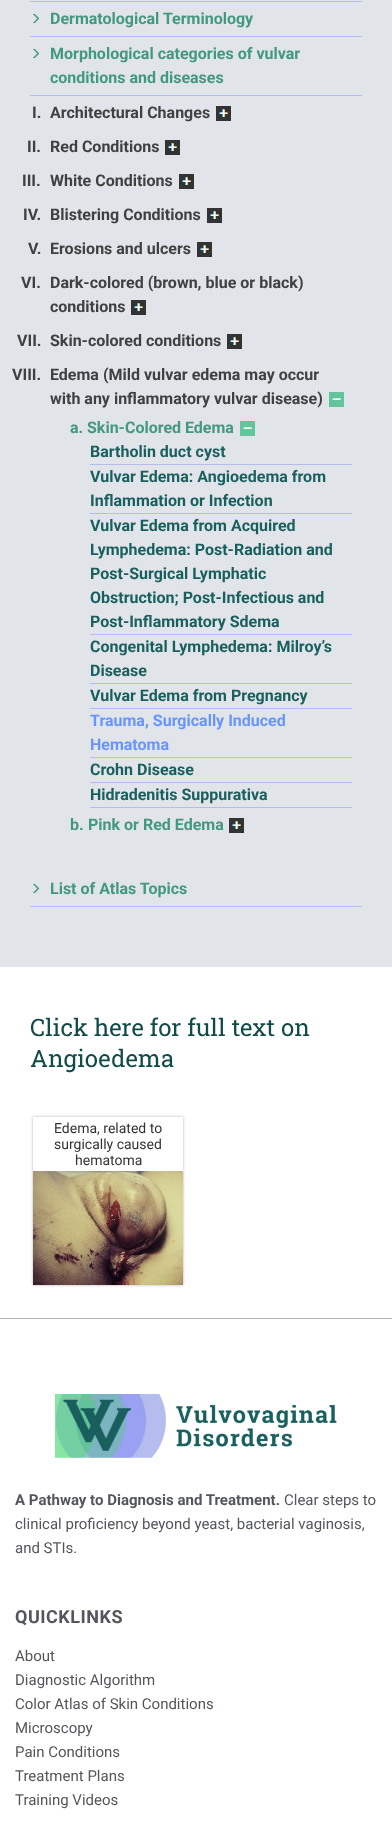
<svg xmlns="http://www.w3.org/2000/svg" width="392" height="1826">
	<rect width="100%" height="100%" fill="#FFFFFF" />
	<rect x="0" y="0" width="392" height="967" fill="#E1E5EA" />
	<rect x="30" y="1" width="332" height="1" fill="#B5BDEE" />
	<rect x="30" y="36" width="332" height="1" fill="#B5BDEE" />
	<image x="33" y="13" width="7" height="11" href="assets/img1.png" />
	<text x="50" y="24" font-family="Roboto" font-size="16" font-weight="700" fill="#439880">Dermatological Terminology</text>
	<rect x="30" y="95" width="332" height="1" fill="#B5BDEE" />
	<image x="33" y="48" width="7" height="11" href="assets/img1.png" />
	<g font-family="Roboto" font-size="16" font-weight="700" fill="#439880">
		<text x="50" y="59">Morphological categories of vulvar</text>
		<text x="50" y="83">conditions and diseases</text>
	</g>
	<g font-family="Roboto" font-size="16" font-weight="700" fill="#404040">
		<text x="32" y="118">I.</text>
		<text x="50" y="118">Architectural Changes</text>
	</g>
	<image x="216" y="106" width="15" height="15" href="assets/img2.png" />
	<g font-family="Roboto" font-size="16" font-weight="700" fill="#404040">
		<text x="27" y="152">II.</text>
		<text x="50" y="152">Red Conditions</text>
	</g>
	<image x="165" y="140" width="15" height="15" href="assets/img2.png" />
	<g font-family="Roboto" font-size="16" font-weight="700" fill="#404040">
		<text x="22" y="186">III.</text>
		<text x="50" y="186">White Conditions</text>
	</g>
	<image x="179" y="174" width="15" height="15" href="assets/img2.png" />
	<g font-family="Roboto" font-size="16" font-weight="700" fill="#404040">
		<text x="23" y="220">IV.</text>
		<text x="50" y="220">Blistering Conditions</text>
	</g>
	<image x="207" y="208" width="15" height="15" href="assets/img2.png" />
	<g font-family="Roboto" font-size="16" font-weight="700" fill="#404040">
		<text x="28" y="254">V.</text>
		<text x="50" y="254">Erosions and ulcers</text>
	</g>
	<image x="197" y="242" width="15" height="15" href="assets/img2.png" />
	<g font-family="Roboto" font-size="16" font-weight="700" fill="#404040">
		<text x="21" y="288">VI.</text>
		<text x="50" y="288">Dark-colored (brown, blue or black)</text>
		<text x="50" y="312">conditions</text>
	</g>
	<image x="131" y="300" width="15" height="15" href="assets/img2.png" />
	<g font-family="Roboto" font-size="16" font-weight="700" fill="#404040">
		<text x="17" y="346">VII.</text>
		<text x="50" y="346">Skin-colored conditions</text>
	</g>
	<image x="227" y="334" width="15" height="15" href="assets/img2.png" />
	<g font-family="Roboto" font-size="16" font-weight="700" fill="#404040">
		<text x="12" y="380">VIII.</text>
		<text x="50" y="380">Edema (Mild vulvar edema may occur</text>
		<text x="50" y="404">with any inflammatory vulvar disease)</text>
	</g>
	<image x="329" y="392" width="15" height="15" href="assets/img3.png" />
	<g font-family="Roboto" font-size="16" font-weight="700" fill="#439880">
		<text x="70" y="433">a.</text>
		<text x="87" y="433">Skin-Colored Edema</text>
	</g>
	<image x="240" y="421" width="15" height="15" href="assets/img3.png" />
	<rect x="90" y="464" width="262" height="1" fill="#B5BDEE" />
	<text x="90" y="457" font-family="Roboto" font-size="16" font-weight="700" fill="#195F5E">Bartholin duct cyst</text>
	<rect x="90" y="513" width="262" height="1" fill="#B5BDEE" />
	<g font-family="Roboto" font-size="16" font-weight="700" fill="#195F5E">
		<text x="90" y="482">Vulvar Edema: Angioedema from</text>
		<text x="90" y="506">Inflammation or Infection</text>
	</g>
	<rect x="90" y="634" width="262" height="1" fill="#B5BDEE" />
	<g font-family="Roboto" font-size="16" font-weight="700" fill="#195F5E">
		<text x="90" y="531">Vulvar Edema from Acquired</text>
		<text x="90" y="555">Lymphedema: Post-Radiation and</text>
		<text x="90" y="579">Post-Surgical Lymphatic</text>
		<text x="90" y="603">Obstruction; Post-Infectious and</text>
		<text x="90" y="627">Post-Inflammatory Sdema</text>
	</g>
	<rect x="90" y="683" width="262" height="1" fill="#B5BDEE" />
	<g font-family="Roboto" font-size="16" font-weight="700" fill="#195F5E">
		<text x="90" y="652">Congenital Lymphedema: Milroy’s</text>
		<text x="90" y="676">Disease</text>
	</g>
	<rect x="90" y="708" width="262" height="1" fill="#B5BDEE" />
	<text x="90" y="701" font-family="Roboto" font-size="16" font-weight="700" fill="#195F5E">Vulvar Edema from Pregnancy</text>
	<rect x="90" y="757" width="262" height="1" fill="#B5BDEE" />
	<g font-family="Roboto" font-size="16" font-weight="700" fill="#6895FD">
		<text x="90" y="726">Trauma, Surgically Induced</text>
		<text x="90" y="750">Hematoma</text>
	</g>
	<rect x="90" y="782" width="262" height="1" fill="#B5BDEE" />
	<text x="90" y="775" font-family="Roboto" font-size="16" font-weight="700" fill="#195F5E">Crohn Disease</text>
	<rect x="90" y="807" width="262" height="1" fill="#B5BDEE" />
	<text x="90" y="800" font-family="Roboto" font-size="16" font-weight="700" fill="#195F5E">Hidradenitis Suppurativa</text>
	<g font-family="Roboto" font-size="16" font-weight="700" fill="#439880">
		<text x="70" y="830">b.</text>
		<text x="88" y="830">Pink or Red Edema</text>
	</g>
	<image x="229" y="818" width="15" height="15" href="assets/img2.png" />
	<rect x="30" y="906" width="332" height="1" fill="#B5BDEE" />
	<image x="33" y="883" width="7" height="11" href="assets/img1.png" />
	<text x="50" y="894" font-family="Roboto" font-size="16" font-weight="700" fill="#439880">List of Atlas Topics</text>
	<g font-family="Roboto Slab" font-size="24" fill="#104B49">
		<text x="30" y="1036">Click here for full text on</text>
		<text x="30" y="1067">Angioedema</text>
	</g>
	<rect x="33" y="1117" width="150" height="168" fill="#000000" fill-opacity="0.3" filter="blur(1.5px)" />
	<image x="33" y="1171" width="150" height="114" href="assets/img4.png" />
	<rect x="33" y="1117" width="150" height="54" fill="#FFFFFF" />
	<g font-family="Roboto" font-size="14" fill="#333333">
		<text x="54" y="1133">Edema, related to</text>
		<text x="54" y="1149">surgically caused</text>
		<text x="75" y="1165">hematoma</text>
	</g>
	<rect x="0" y="1318" width="392" height="1" fill="#B5B5B5" />
	<image x="55" y="1394" width="282" height="64" href="assets/img5.png" />
	<text x="15" y="1505" font-family="Roboto" font-size="15" font-weight="700" fill="#54565C">A Pathway to Diagnosis and Treatment.</text>
	<g font-family="Roboto" font-size="15" fill="#54565C">
		<text x="284" y="1505">Clear steps to</text>
		<text x="15" y="1529">clinical proficiency beyond yeast, bacterial vaginosis,</text>
		<text x="15" y="1553">and STIs.</text>
	</g>
	<text x="15" y="1623" font-family="Roboto" font-size="18" font-weight="700" letter-spacing="0.5" fill="#54565C">QUICKLINKS</text>
	<g font-family="Roboto" font-size="15" fill="#54565C">
		<text x="15" y="1661">About</text>
		<text x="15" y="1685">Diagnostic Algorithm</text>
		<text x="15" y="1709">Color Atlas of Skin Conditions</text>
		<text x="15" y="1733">Microscopy</text>
		<text x="15" y="1757">Pain Conditions</text>
		<text x="15" y="1781">Treatment Plans</text>
		<text x="15" y="1805">Training Videos</text>
	</g>
</svg>
